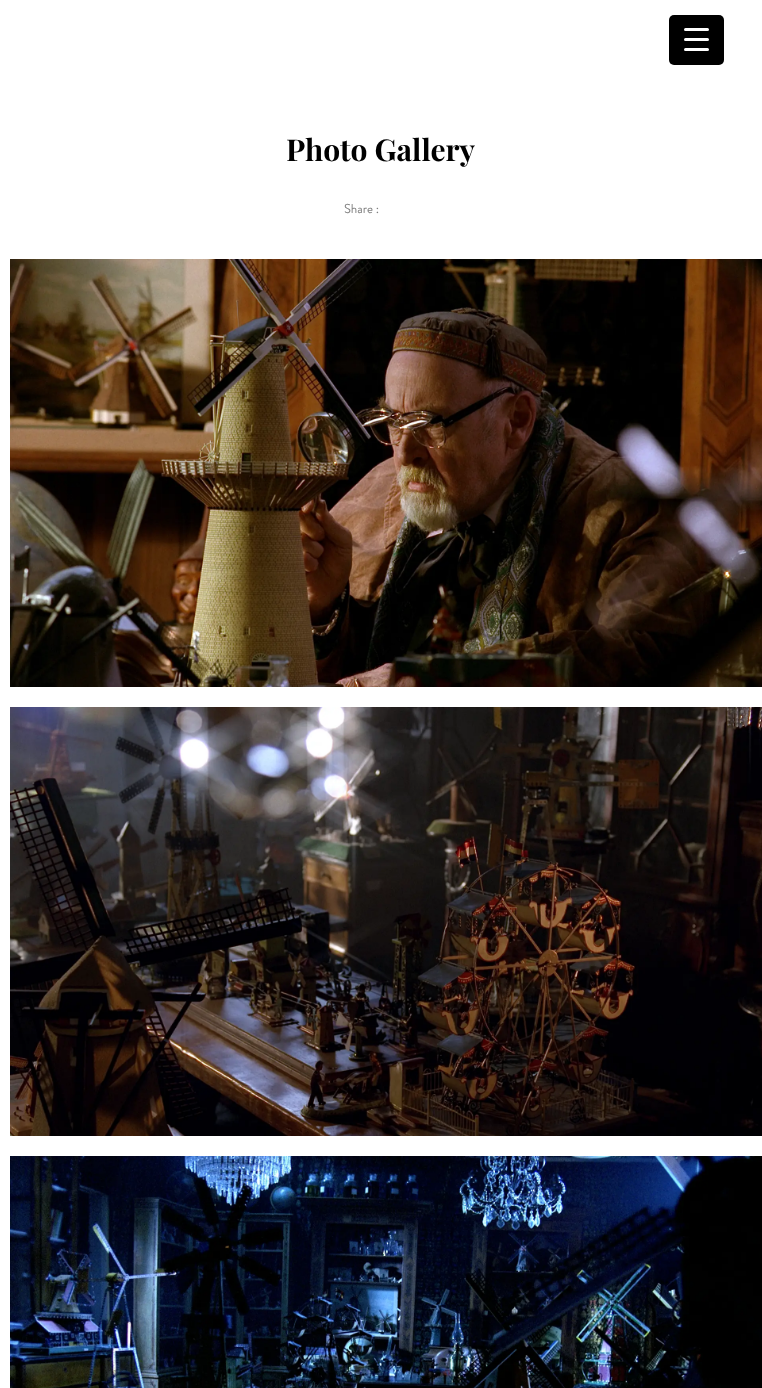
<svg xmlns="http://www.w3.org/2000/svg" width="762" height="1388">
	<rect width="100%" height="100%" fill="#FFFFFF" />
	<rect x="669" y="15" width="55" height="50" rx="5" fill="#000000" />
	<rect x="684" y="38" width="25" height="3" rx="1.5" fill="#FFFFFF" />
	<rect x="684" y="28" width="25" height="3" rx="1.5" fill="#FFFFFF" />
	<rect x="684" y="48" width="25" height="3" rx="1.5" fill="#FFFFFF" />
	<text x="286" y="161" font-family="Playfair Display" font-size="30" font-weight="700" fill="#000000">Photo Gallery</text>
	<text x="344" y="213" font-family="Brandon Grotesque" font-size="13" fill="#808080">Share :</text>
	<image x="10" y="259" width="752" height="428" href="assets/img1.png" />
	<image x="10" y="707" width="752" height="429" href="assets/img2.png" />
	<image x="10" y="1156" width="752" height="232" href="assets/img3.png" />
</svg>
